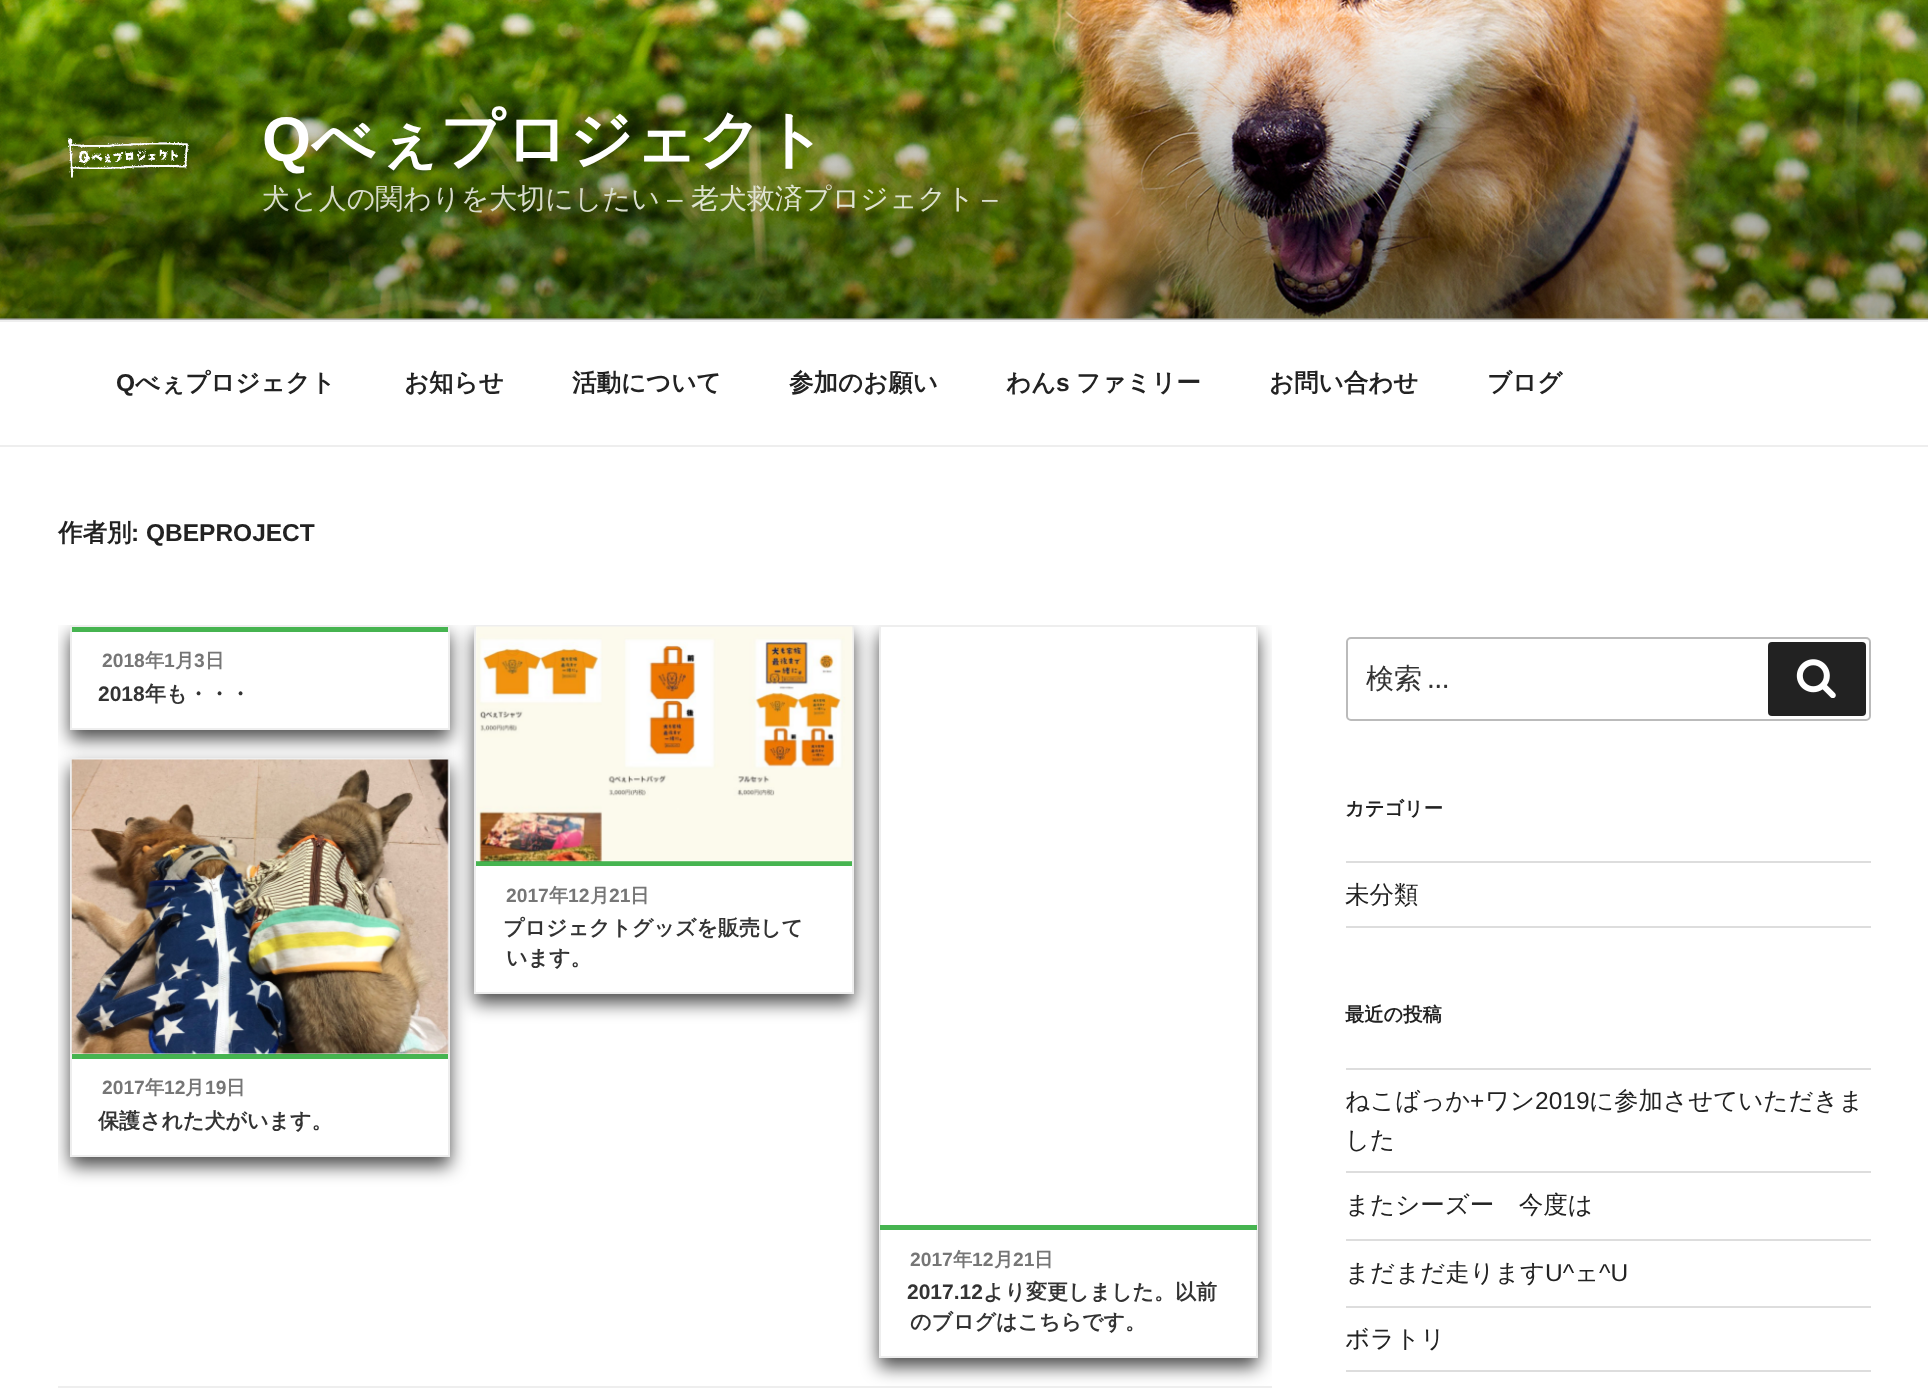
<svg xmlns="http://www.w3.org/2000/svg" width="1928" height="1395">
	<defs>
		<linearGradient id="g1" gradientUnits="userSpaceOnUse" x1="964" y1="0" x2="964" y2="320"><stop offset="0" stop-color="#000000" stop-opacity="0" /><stop offset="0.75" stop-color="#000000" stop-opacity="0.3" /><stop offset="1" stop-color="#000000" stop-opacity="0.3" /></linearGradient>
		<clipPath id="clip1"><rect x="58" y="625" width="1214" height="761" /></clipPath>
		<clipPath id="clip2"><path d="M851 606H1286V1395H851ZM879 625H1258V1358H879Z" clip-rule="evenodd" /></clipPath>
	</defs>
	<rect width="100%" height="100%" fill="#FFFFFF" />
	<rect x="0" y="318" width="1928" height="2" fill="#FAFAFA" />
	<image x="0" y="0" width="1928" height="319" href="assets/img1.png" />
	<rect x="0" y="17" width="1928" height="303" fill="url(#g1)" />
	<image x="68" y="138" width="121" height="40" href="assets/img2.png" />
	<text x="262" y="161" font-family="Liberation Sans" font-size="63" font-weight="700" fill="#FFFFFF">Q</text>
	<text x="311" y="161" font-family="WenQuanYi Zen Hei" font-size="63" font-weight="700" fill="#FFFFFF">べぇプロジェクト</text>
	<text x="262" y="208" font-family="WenQuanYi Zen Hei" font-size="28" font-weight="500" fill="#D8DCCD">犬と人の関わりを大切にしたい</text>
	<text x="667" y="208" font-family="Liberation Sans" font-size="28" fill="#D8DCCD">–</text>
	<text x="691" y="208" font-family="WenQuanYi Zen Hei" font-size="28" font-weight="500" fill="#DFE3D1">老犬救済プロジェクト</text>
	<text x="982" y="208" font-family="Liberation Sans" font-size="28" fill="#D8DCCD">–</text>
	<rect x="0" y="320" width="1928" height="2" fill="#EEEEEE" />
	<rect x="0" y="445" width="1928" height="2" fill="#EEEEEE" />
	<text x="116" y="391" font-family="Liberation Sans" font-size="24.5" font-weight="700" fill="#222222">Q</text>
	<g font-family="WenQuanYi Zen Hei" font-size="24.5" font-weight="700" fill="#222222">
		<text x="135" y="391">べぇプロジェクト</text>
		<text x="404" y="391">お知らせ</text>
		<text x="572" y="391">活動について</text>
		<text x="789" y="391">参加のお願い</text>
		<text x="1006" y="391">わん</text>
	</g>
	<text x="1056" y="391" font-family="Liberation Sans" font-size="24.5" font-weight="700" fill="#222222">s</text>
	<g font-family="WenQuanYi Zen Hei" font-size="24.5" font-weight="700" fill="#222222">
		<text x="1076" y="391">ファミリー</text>
		<text x="1269" y="391">お問い合わせ</text>
		<text x="1487" y="391">ブログ</text>
		<text x="58" y="541">作者別</text>
	</g>
	<text x="131" y="541" font-family="Liberation Sans" font-size="24.5" font-weight="700" fill="#222222">: QBEPROJECT</text>
	<g clip-path="url(#clip1)">
		<rect x="70" y="634" width="380" height="105" fill="#000000" fill-opacity="0.7" filter="blur(9px)" />
	</g>
	<rect x="72" y="632" width="376" height="96" fill="#FFFFFF" />
	<rect x="71" y="626" width="378" height="103" fill="none" stroke="#EEEEEE" stroke-width="2" />
	<rect x="72" y="627" width="376" height="5" fill="#46B450" />
	<text x="102" y="667" font-family="Liberation Sans" font-size="19.25" font-weight="700" fill="#767676">2018</text>
	<text x="145" y="667" font-family="WenQuanYi Zen Hei" font-size="19.25" font-weight="700" fill="#767676">年</text>
	<text x="164" y="667" font-family="Liberation Sans" font-size="19.25" font-weight="700" fill="#767676">1</text>
	<text x="175" y="667" font-family="WenQuanYi Zen Hei" font-size="19.25" font-weight="700" fill="#767676">月</text>
	<text x="194" y="667" font-family="Liberation Sans" font-size="19.25" font-weight="700" fill="#767676">3</text>
	<text x="205" y="667" font-family="WenQuanYi Zen Hei" font-size="19.25" font-weight="700" fill="#767676">日</text>
	<text x="98" y="701" font-family="Liberation Sans" font-size="21" font-weight="700" fill="#333333">2018</text>
	<text x="145" y="701" font-family="WenQuanYi Zen Hei" font-size="21" font-weight="700" fill="#333333">年も・・・</text>
	<g clip-path="url(#clip1)">
		<rect x="474" y="634" width="380" height="369" fill="#000000" fill-opacity="0.7" filter="blur(9px)" />
	</g>
	<rect x="475" y="626" width="378" height="367" fill="#FFFFFF" stroke="#EEEEEE" stroke-width="2" />
	<rect x="476" y="861" width="376" height="5" fill="#46B450" />
	<image x="476" y="626" width="377" height="236" href="assets/img3.png" />
	<text x="506" y="902" font-family="Liberation Sans" font-size="19.25" font-weight="700" fill="#767676">2017</text>
	<text x="549" y="902" font-family="WenQuanYi Zen Hei" font-size="19.25" font-weight="700" fill="#767676">年</text>
	<text x="568" y="902" font-family="Liberation Sans" font-size="19.25" font-weight="700" fill="#767676">12</text>
	<text x="590" y="902" font-family="WenQuanYi Zen Hei" font-size="19.25" font-weight="700" fill="#767676">月</text>
	<text x="609" y="902" font-family="Liberation Sans" font-size="19.25" font-weight="700" fill="#767676">21</text>
	<text x="630" y="902" font-family="WenQuanYi Zen Hei" font-size="19.25" font-weight="700" fill="#767676">日</text>
	<g font-family="WenQuanYi Zen Hei" font-size="21" font-weight="700" fill="#333333">
		<text x="503" y="935">プロジェクトグッズを販売して</text>
		<text x="506" y="965">います。</text>
	</g>
	<g clip-path="url(#clip1)">
		<rect x="70" y="767" width="380" height="399" fill="#000000" fill-opacity="0.7" filter="blur(9px)" />
	</g>
	<rect x="71" y="759" width="378" height="397" fill="#FFFFFF" stroke="#EEEEEE" stroke-width="2" />
	<rect x="72" y="1054" width="376" height="5" fill="#46B450" />
	<image x="71" y="759" width="378" height="296" href="assets/img4.png" />
	<text x="102" y="1094" font-family="Liberation Sans" font-size="19.25" font-weight="700" fill="#767676">2017</text>
	<text x="145" y="1094" font-family="WenQuanYi Zen Hei" font-size="19.25" font-weight="700" fill="#767676">年</text>
	<text x="164" y="1094" font-family="Liberation Sans" font-size="19.25" font-weight="700" fill="#767676">12</text>
	<text x="185" y="1094" font-family="WenQuanYi Zen Hei" font-size="19.25" font-weight="700" fill="#767676">月</text>
	<text x="205" y="1094" font-family="Liberation Sans" font-size="19.25" font-weight="700" fill="#767676">19</text>
	<text x="226" y="1094" font-family="WenQuanYi Zen Hei" font-size="19.25" font-weight="700" fill="#767676">日</text>
	<text x="98" y="1128" font-family="WenQuanYi Zen Hei" font-size="21" font-weight="700" fill="#333333">保護された犬がいます。</text>
	<rect x="58" y="1386" width="1214" height="2" fill="#EEEEEE" />
	<g clip-path="url(#clip1)">
		<g clip-path="url(#clip2)">
			<rect x="879" y="634" width="379" height="733" fill="#000000" fill-opacity="0.7" filter="blur(9px)" />
		</g>
	</g>
	<rect x="880" y="626" width="377" height="731" fill="none" stroke="#EEEEEE" stroke-width="2" />
	<rect x="880" y="1225" width="377" height="5" fill="#46B450" />
	<text x="910" y="1266" font-family="Liberation Sans" font-size="19.25" font-weight="700" fill="#767676">2017</text>
	<text x="953" y="1266" font-family="WenQuanYi Zen Hei" font-size="19.25" font-weight="700" fill="#767676">年</text>
	<text x="972" y="1266" font-family="Liberation Sans" font-size="19.25" font-weight="700" fill="#767676">12</text>
	<text x="994" y="1266" font-family="WenQuanYi Zen Hei" font-size="19.25" font-weight="700" fill="#767676">月</text>
	<text x="1013" y="1266" font-family="Liberation Sans" font-size="19.25" font-weight="700" fill="#767676">21</text>
	<text x="1034" y="1266" font-family="WenQuanYi Zen Hei" font-size="19.25" font-weight="700" fill="#767676">日</text>
	<text x="907" y="1299" font-family="Liberation Sans" font-size="21" font-weight="700" fill="#333333">2017.12</text>
	<g font-family="WenQuanYi Zen Hei" font-size="21" font-weight="700" fill="#333333">
		<text x="983" y="1299">より変更しました。以前</text>
		<text x="910" y="1329">のブログはこちらです。</text>
	</g>
	<rect x="1347" y="638" width="523" height="82" rx="4" fill="none" stroke="#BBBBBB" stroke-width="2" />
	<text x="1366" y="688" font-family="WenQuanYi Zen Hei" font-size="28" font-weight="500" fill="#333333">検索</text>
	<text x="1428" y="688" font-family="Libre Franklin" font-size="28" fill="#333333">…</text>
	<rect x="1768" y="642" width="98" height="74" rx="4" fill="#222222" />
	<image x="1796" y="659" width="40" height="39" href="assets/img5.png" />
	<text x="1345" y="815" font-family="WenQuanYi Zen Hei" font-size="19.25" font-weight="700" fill="#222222">カテゴリー</text>
	<rect x="1346" y="861" width="525" height="2" fill="#DDDDDD" />
	<rect x="1346" y="926" width="525" height="2" fill="#DDDDDD" />
	<text x="1345" y="903" font-family="WenQuanYi Zen Hei" font-size="24.5" font-weight="500" fill="#222222">未分類</text>
	<text x="1345" y="1021" font-family="WenQuanYi Zen Hei" font-size="19.25" font-weight="700" fill="#222222">最近の投稿</text>
	<rect x="1346" y="1068" width="525" height="2" fill="#DDDDDD" />
	<rect x="1346" y="1171" width="525" height="2" fill="#DDDDDD" />
	<text x="1345" y="1109" font-family="WenQuanYi Zen Hei" font-size="24.5" font-weight="500" fill="#222222">ねこばっか</text>
	<text x="1470" y="1109" font-family="Liberation Sans" font-size="24.5" fill="#222222">+</text>
	<text x="1485" y="1109" font-family="WenQuanYi Zen Hei" font-size="24.5" font-weight="500" fill="#222222">ワン</text>
	<text x="1535" y="1109" font-family="Liberation Sans" font-size="24.5" fill="#222222">2019</text>
	<g font-family="WenQuanYi Zen Hei" font-size="24.5" font-weight="500" fill="#222222">
		<text x="1589" y="1109">に参加させていただきま</text>
		<text x="1345" y="1148">した</text>
	</g>
	<rect x="1346" y="1239" width="525" height="2" fill="#DDDDDD" />
	<text x="1345" y="1213" font-family="WenQuanYi Zen Hei" font-size="24.5" font-weight="500" fill="#222222">またシーズー　今度は</text>
	<rect x="1346" y="1306" width="525" height="2" fill="#DDDDDD" />
	<text x="1345" y="1281" font-family="WenQuanYi Zen Hei" font-size="24.5" font-weight="500" fill="#222222">まだまだ走ります</text>
	<text x="1545" y="1281" font-family="Liberation Sans" font-size="24.5" fill="#222222">U^</text>
	<text x="1574" y="1281" font-family="WenQuanYi Zen Hei" font-size="24.5" font-weight="500" fill="#222222">ェ</text>
	<text x="1599" y="1281" font-family="Liberation Sans" font-size="24.5" fill="#222222">^U</text>
	<rect x="1346" y="1370" width="525" height="2" fill="#DDDDDD" />
	<text x="1345" y="1347" font-family="WenQuanYi Zen Hei" font-size="24.5" font-weight="500" fill="#222222">ボラトリ</text>
</svg>
